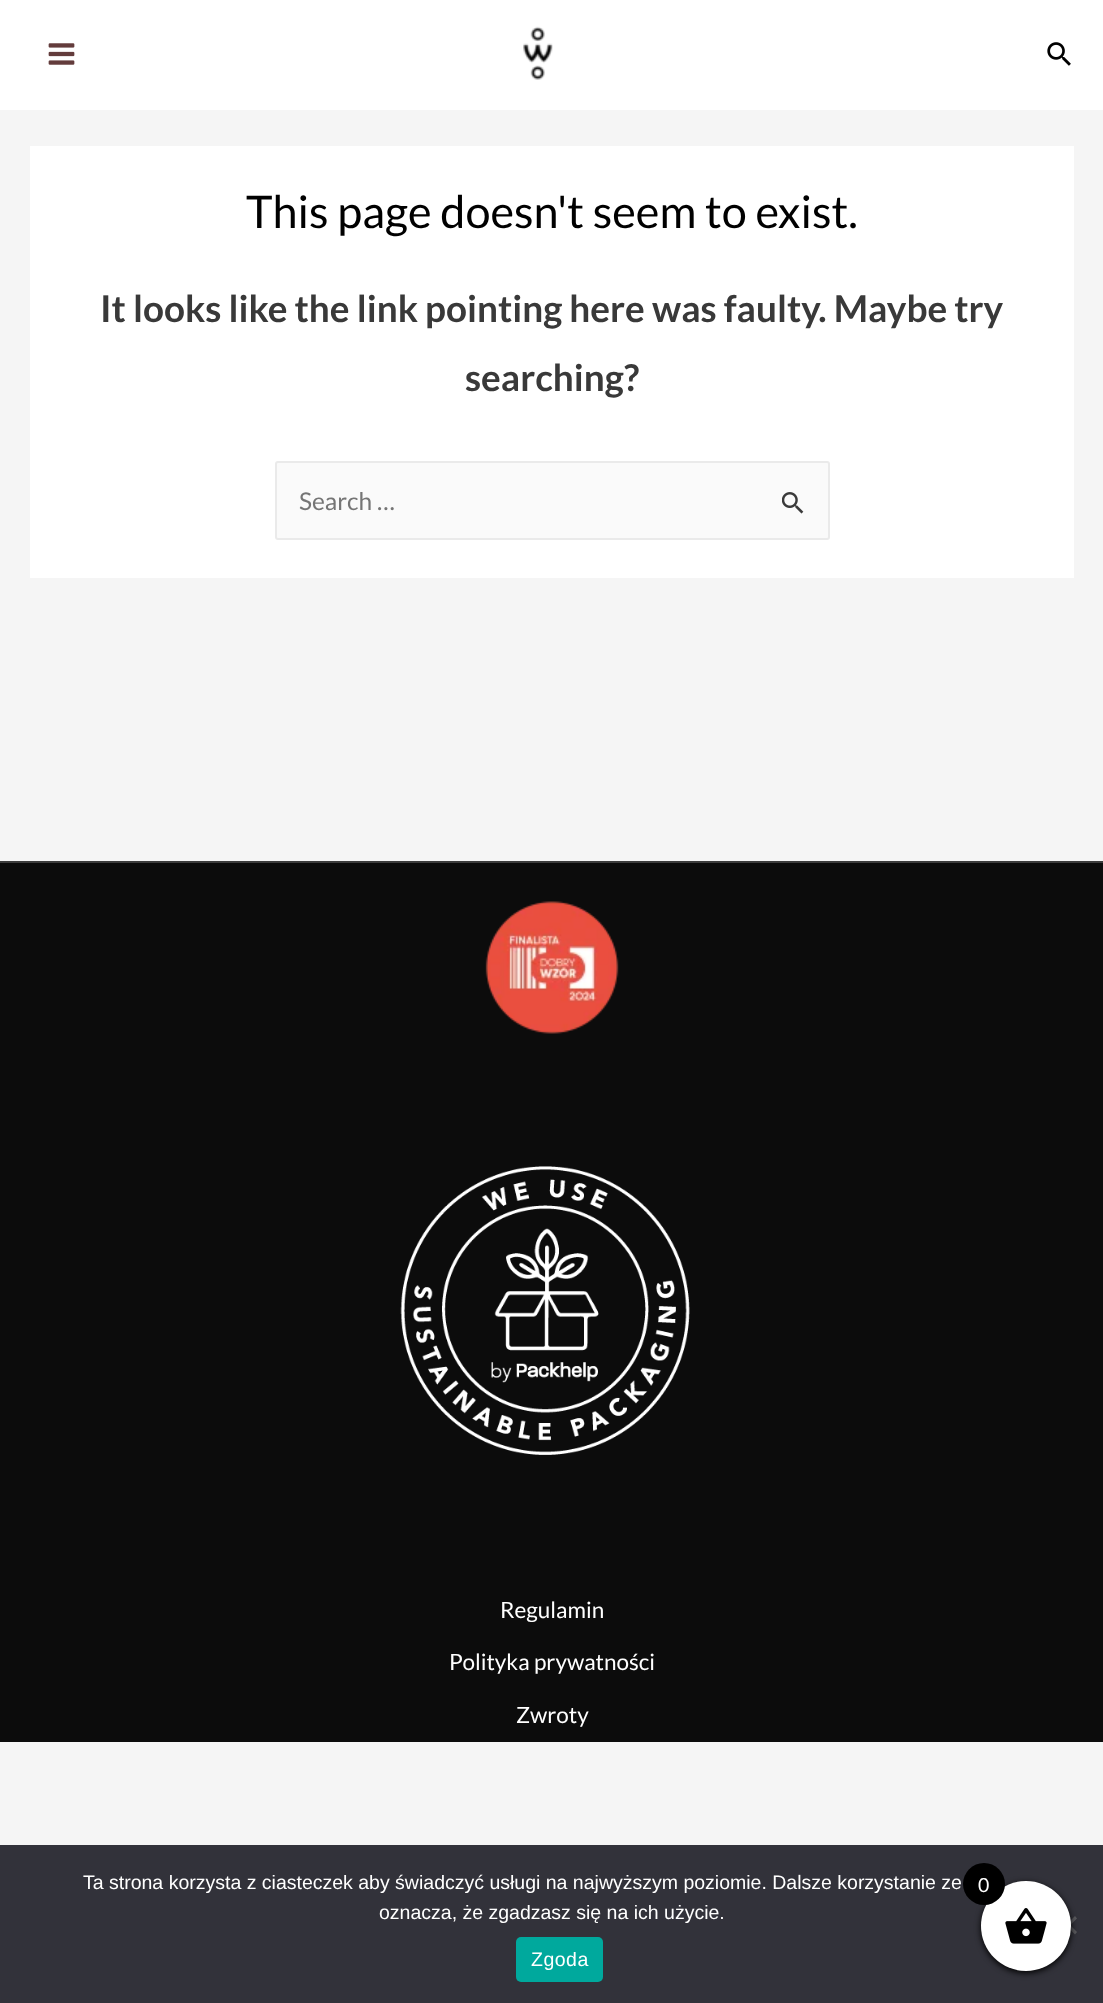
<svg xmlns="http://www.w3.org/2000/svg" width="1103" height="2003">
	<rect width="100%" height="100%" fill="#F5F5F5" />
	<rect x="0" y="0" width="1103" height="110" fill="#FFFFFF" />
	<image x="48" y="43" width="27" height="22" href="assets/img1.png" />
	<image x="523" y="26" width="30" height="54" href="assets/img2.png" />
	<image x="1047" y="42" width="24" height="24" href="assets/img3.png" />
	<rect x="30" y="146" width="1044" height="432" fill="#FFFFFF" />
	<text x="246" y="228" font-family="Lato" font-size="45" fill="#000000">This page doesn't seem to exist.</text>
	<g font-family="Lato" font-size="36.9" font-weight="700" fill="#393939">
		<text x="100" y="322">It looks like the link pointing here was faulty. Maybe try</text>
		<text x="465" y="391">searching?</text>
	</g>
	<rect x="276" y="462" width="553" height="77" rx="2" fill="#FAFAFA" stroke="#EAEAEA" stroke-width="2" />
	<text x="299" y="510" font-family="Lato" font-size="24.5" fill="#757575">Search …</text>
	<image x="782" y="492" width="22" height="22" href="assets/img4.png" />
	<rect x="0" y="863" width="1103" height="879" fill="#0C0C0C" />
	<rect x="0" y="861" width="1103" height="2" fill="#3D3D3D" />
	<image x="485" y="901" width="134" height="133" href="assets/img5.png" />
	<image x="400" y="1166" width="290" height="289" href="assets/img6.png" />
	<g font-family="Lato" font-size="22.5" fill="#FFFFFF">
		<text x="500" y="1618">Regulamin</text>
		<text x="449" y="1670">Polityka prywatności</text>
		<text x="516" y="1723">Zwroty</text>
	</g>
	<rect x="0" y="1845" width="1103" height="158" fill="#32323A" />
	<g font-family="Liberation Sans" font-size="19.5" fill="#FFFFFF">
		<text x="83" y="1889">Ta strona korzysta z ciasteczek aby świadczyć usługi na najwyższym poziomie. Dalsze korzystanie ze</text>
		<text x="379" y="1919">oznacza, że zgadzasz się na ich użycie.</text>
	</g>
	<path d="M1075 1916L1077 1918.5L1061 1934.5L1059 1932Z" fill="#59595D" />
	<path d="M1059 1918.5L1061 1916L1077 1932L1075 1934.5Z" fill="#59595D" />
	<rect x="516" y="1937" width="87" height="45" rx="5" fill="#00A99D" />
	<text x="531" y="1966" font-family="Liberation Sans" font-size="19.5" letter-spacing="0.5" fill="#FFFFFF">Zgoda</text>
	<rect x="981" y="1883" width="90" height="90" rx="45" fill="#000000" filter="blur(3px)" />
	<circle cx="1026" cy="1926" r="45" fill="#FFFFFF" />
	<circle cx="984" cy="1884" r="21" fill="#000000" />
	<text x="978" y="1892" font-family="Lato" font-size="19.5" fill="#FFFFFF">0</text>
	<image x="1005" y="1908" width="42" height="36" href="assets/img7.png" />
</svg>
